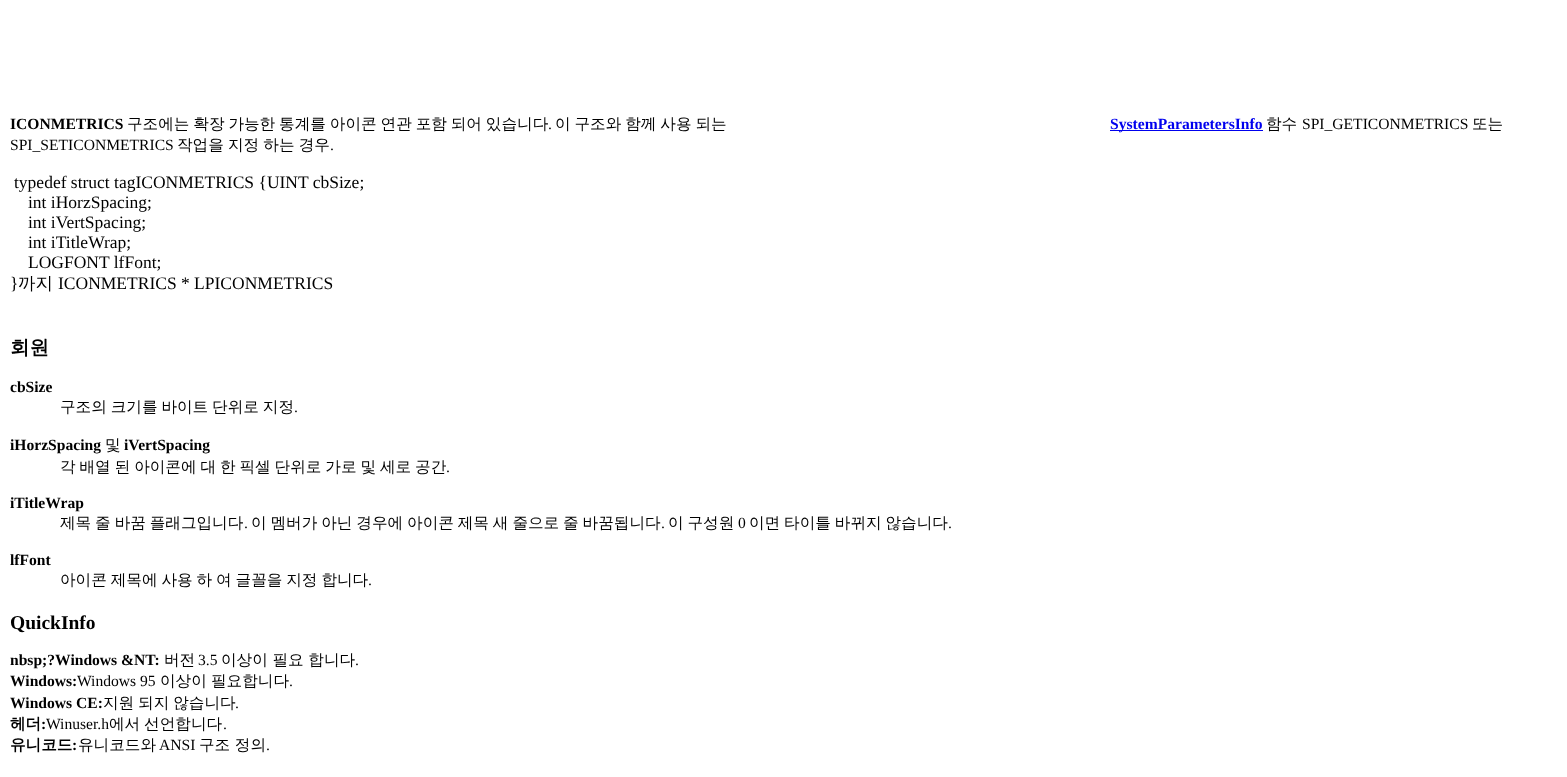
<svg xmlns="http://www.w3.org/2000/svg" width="1567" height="777">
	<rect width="100%" height="100%" fill="#FFFFFF" />
	<text x="10" y="129" font-family="Liberation Serif" font-size="15.6" font-weight="700" fill="#000000">ICONMETRICS</text>
	<text x="127" y="129" word-spacing="-0.75" font-family="WenQuanYi Zen Hei" font-size="15.6" font-weight="500" fill="#000000">구조에는 확장 가능한 통계를 아이콘 연관 포함 되어 있습니다</text>
	<text x="548" y="129" font-family="Liberation Serif" font-size="15.6" fill="#000000">.</text>
	<text x="555" y="129" word-spacing="-0.75" font-family="WenQuanYi Zen Hei" font-size="15.6" font-weight="500" fill="#000000">이 구조와 함께 사용 되는</text>
	<rect x="1110" y="130" width="153" height="1" fill="#0000EE" />
	<text x="1110" y="129" font-family="Liberation Serif" font-size="15.6" font-weight="700" fill="#0000EE">SystemParametersInfo</text>
	<text x="1266" y="129" font-family="WenQuanYi Zen Hei" font-size="15.6" font-weight="500" fill="#000000">함수</text>
	<text x="1302" y="129" font-family="Liberation Serif" font-size="15.6" fill="#000000">SPI_GETICONMETRICS</text>
	<text x="1472" y="129" font-family="WenQuanYi Zen Hei" font-size="15.6" font-weight="500" fill="#000000">또는</text>
	<text x="10" y="150" font-family="Liberation Serif" font-size="15.6" fill="#000000">SPI_SETICONMETRICS</text>
	<text x="177" y="150" word-spacing="-0.5" font-family="WenQuanYi Zen Hei" font-size="15.6" font-weight="500" fill="#000000">작업을 지정 하는 경우</text>
	<text x="330" y="150" font-family="Liberation Serif" font-size="15.6" fill="#000000">.</text>
	<g font-family="Liberation Serif" font-size="17.5" fill="#000000">
		<text x="14" y="188">typedef struct tagICONMETRICS {UINT cbSize;</text>
		<text x="28" y="208">int iHorzSpacing;</text>
		<text x="28" y="228">int iVertSpacing;</text>
		<text x="28" y="248">int iTitleWrap;</text>
		<text x="28" y="268">LOGFONT lfFont;</text>
		<text x="10" y="289">}</text>
	</g>
	<text x="18" y="289" font-family="WenQuanYi Zen Hei" font-size="17.5" font-weight="500" fill="#000000">까지</text>
	<text x="58" y="289" font-family="Liberation Serif" font-size="17.5" fill="#000000">ICONMETRICS * LPICONMETRICS</text>
	<text x="10" y="354" font-family="WenQuanYi Zen Hei" font-size="19.5" font-weight="700" fill="#000000">회원</text>
	<text x="10" y="392" font-family="Liberation Serif" font-size="15.6" font-weight="700" fill="#000000">cbSize</text>
	<text x="60" y="412" word-spacing="-0.75" font-family="WenQuanYi Zen Hei" font-size="15.6" font-weight="500" fill="#000000">구조의 크기를 바이트 단위로 지정</text>
	<text x="294" y="412" font-family="Liberation Serif" font-size="15.6" fill="#000000">.</text>
	<text x="10" y="450" font-family="Liberation Serif" font-size="15.6" font-weight="700" fill="#000000">iHorzSpacing</text>
	<text x="105" y="450" font-family="WenQuanYi Zen Hei" font-size="15.6" font-weight="500" fill="#000000">및</text>
	<text x="124" y="450" font-family="Liberation Serif" font-size="15.6" font-weight="700" fill="#000000">iVertSpacing</text>
	<text x="60" y="472" word-spacing="-0.75" font-family="WenQuanYi Zen Hei" font-size="15.6" font-weight="500" fill="#000000">각 배열 된 아이콘에 대 한 픽셀 단위로 가로 및 세로 공간</text>
	<text x="446" y="472" font-family="Liberation Serif" font-size="15.6" fill="#000000">.</text>
	<text x="10" y="508" font-family="Liberation Serif" font-size="15.6" font-weight="700" fill="#000000">iTitleWrap</text>
	<text x="60" y="528" word-spacing="-0.75" font-family="WenQuanYi Zen Hei" font-size="15.6" font-weight="500" fill="#000000">제목 줄 바꿈 플래그입니다</text>
	<text x="244" y="528" font-family="Liberation Serif" font-size="15.6" fill="#000000">.</text>
	<text x="251" y="528" word-spacing="-0.75" font-family="WenQuanYi Zen Hei" font-size="15.6" font-weight="500" fill="#000000">이 멤버가 아닌 경우에 아이콘 제목 새 줄으로 줄 바꿈됩니다</text>
	<text x="661" y="528" font-family="Liberation Serif" font-size="15.6" fill="#000000">.</text>
	<text x="668" y="528" word-spacing="-0.75" font-family="WenQuanYi Zen Hei" font-size="15.6" font-weight="500" fill="#000000">이 구성원</text>
	<text x="738" y="528" font-family="Liberation Serif" font-size="15.6" fill="#000000">0</text>
	<text x="749" y="528" word-spacing="-0.75" font-family="WenQuanYi Zen Hei" font-size="15.6" font-weight="500" fill="#000000">이면 타이틀 바뀌지 않습니다</text>
	<text x="948" y="528" font-family="Liberation Serif" font-size="15.6" fill="#000000">.</text>
	<text x="10" y="565" font-family="Liberation Serif" font-size="15.6" font-weight="700" fill="#000000">lfFont</text>
	<text x="60" y="585" word-spacing="-0.75" font-family="WenQuanYi Zen Hei" font-size="15.6" font-weight="500" fill="#000000">아이콘 제목에 사용 하 여 글꼴을 지정 합니다</text>
	<text x="368" y="585" font-family="Liberation Serif" font-size="15.6" fill="#000000">.</text>
	<text x="10" y="629" font-family="Liberation Serif" font-size="19.5" font-weight="700" fill="#000000">QuickInfo</text>
	<text x="10" y="665" font-family="Liberation Serif" font-size="15.6" font-weight="700" fill="#000000">nbsp;?Windows &amp;NT:</text>
	<text x="164" y="665" font-family="WenQuanYi Zen Hei" font-size="15.6" font-weight="500" fill="#000000">버전</text>
	<text x="198" y="665" font-family="Liberation Serif" font-size="15.6" fill="#000000">3.5</text>
	<text x="221" y="665" font-family="WenQuanYi Zen Hei" font-size="15.6" font-weight="500" fill="#000000">이상이 필요 합니다</text>
	<text x="355" y="665" font-family="Liberation Serif" font-size="15.6" fill="#000000">.</text>
	<text x="10" y="686" font-family="Liberation Serif" font-size="15.6" font-weight="700" fill="#000000">Windows:</text>
	<text x="77" y="686" font-family="Liberation Serif" font-size="15.6" fill="#000000">Windows 95</text>
	<g font-family="WenQuanYi Zen Hei" font-size="15.6" font-weight="500" fill="#000000">
		<text x="160" y="686">이상이</text>
		<text x="211" y="686">필요합니다</text>
	</g>
	<text x="289" y="686" font-family="Liberation Serif" font-size="15.6" fill="#000000">.</text>
	<text x="10" y="708" font-family="Liberation Serif" font-size="15.6" font-weight="700" fill="#000000">Windows CE:</text>
	<text x="103" y="708" word-spacing="-0.75" font-family="WenQuanYi Zen Hei" font-size="15.6" font-weight="500" fill="#000000">지원 되지 않습니다</text>
	<text x="235" y="708" font-family="Liberation Serif" font-size="15.6" fill="#000000">.</text>
	<text x="10" y="729" font-family="WenQuanYi Zen Hei" font-size="15.6" font-weight="700" fill="#000000">헤더</text>
	<text x="41" y="729" font-family="Liberation Serif" font-size="15.6" font-weight="700" fill="#000000">:</text>
	<text x="46" y="729" font-family="Liberation Serif" font-size="15.6" fill="#000000">Winuser.h</text>
	<text x="109" y="729" word-spacing="-0.75" font-family="WenQuanYi Zen Hei" font-size="15.6" font-weight="500" fill="#000000">에서 선언합니다</text>
	<text x="223" y="729" font-family="Liberation Serif" font-size="15.6" fill="#000000">.</text>
	<text x="10" y="750" font-family="WenQuanYi Zen Hei" font-size="15.6" font-weight="700" fill="#000000">유니코드</text>
	<text x="72" y="750" font-family="Liberation Serif" font-size="15.6" font-weight="700" fill="#000000">:</text>
	<text x="78" y="750" font-family="WenQuanYi Zen Hei" font-size="15.6" font-weight="500" fill="#000000">유니코드와</text>
	<text x="159" y="750" font-family="Liberation Serif" font-size="15.6" fill="#000000">ANSI</text>
	<text x="199" y="750" font-family="WenQuanYi Zen Hei" font-size="15.6" font-weight="500" fill="#000000">구조 정의</text>
	<text x="266" y="750" font-family="Liberation Serif" font-size="15.6" fill="#000000">.</text>
</svg>
